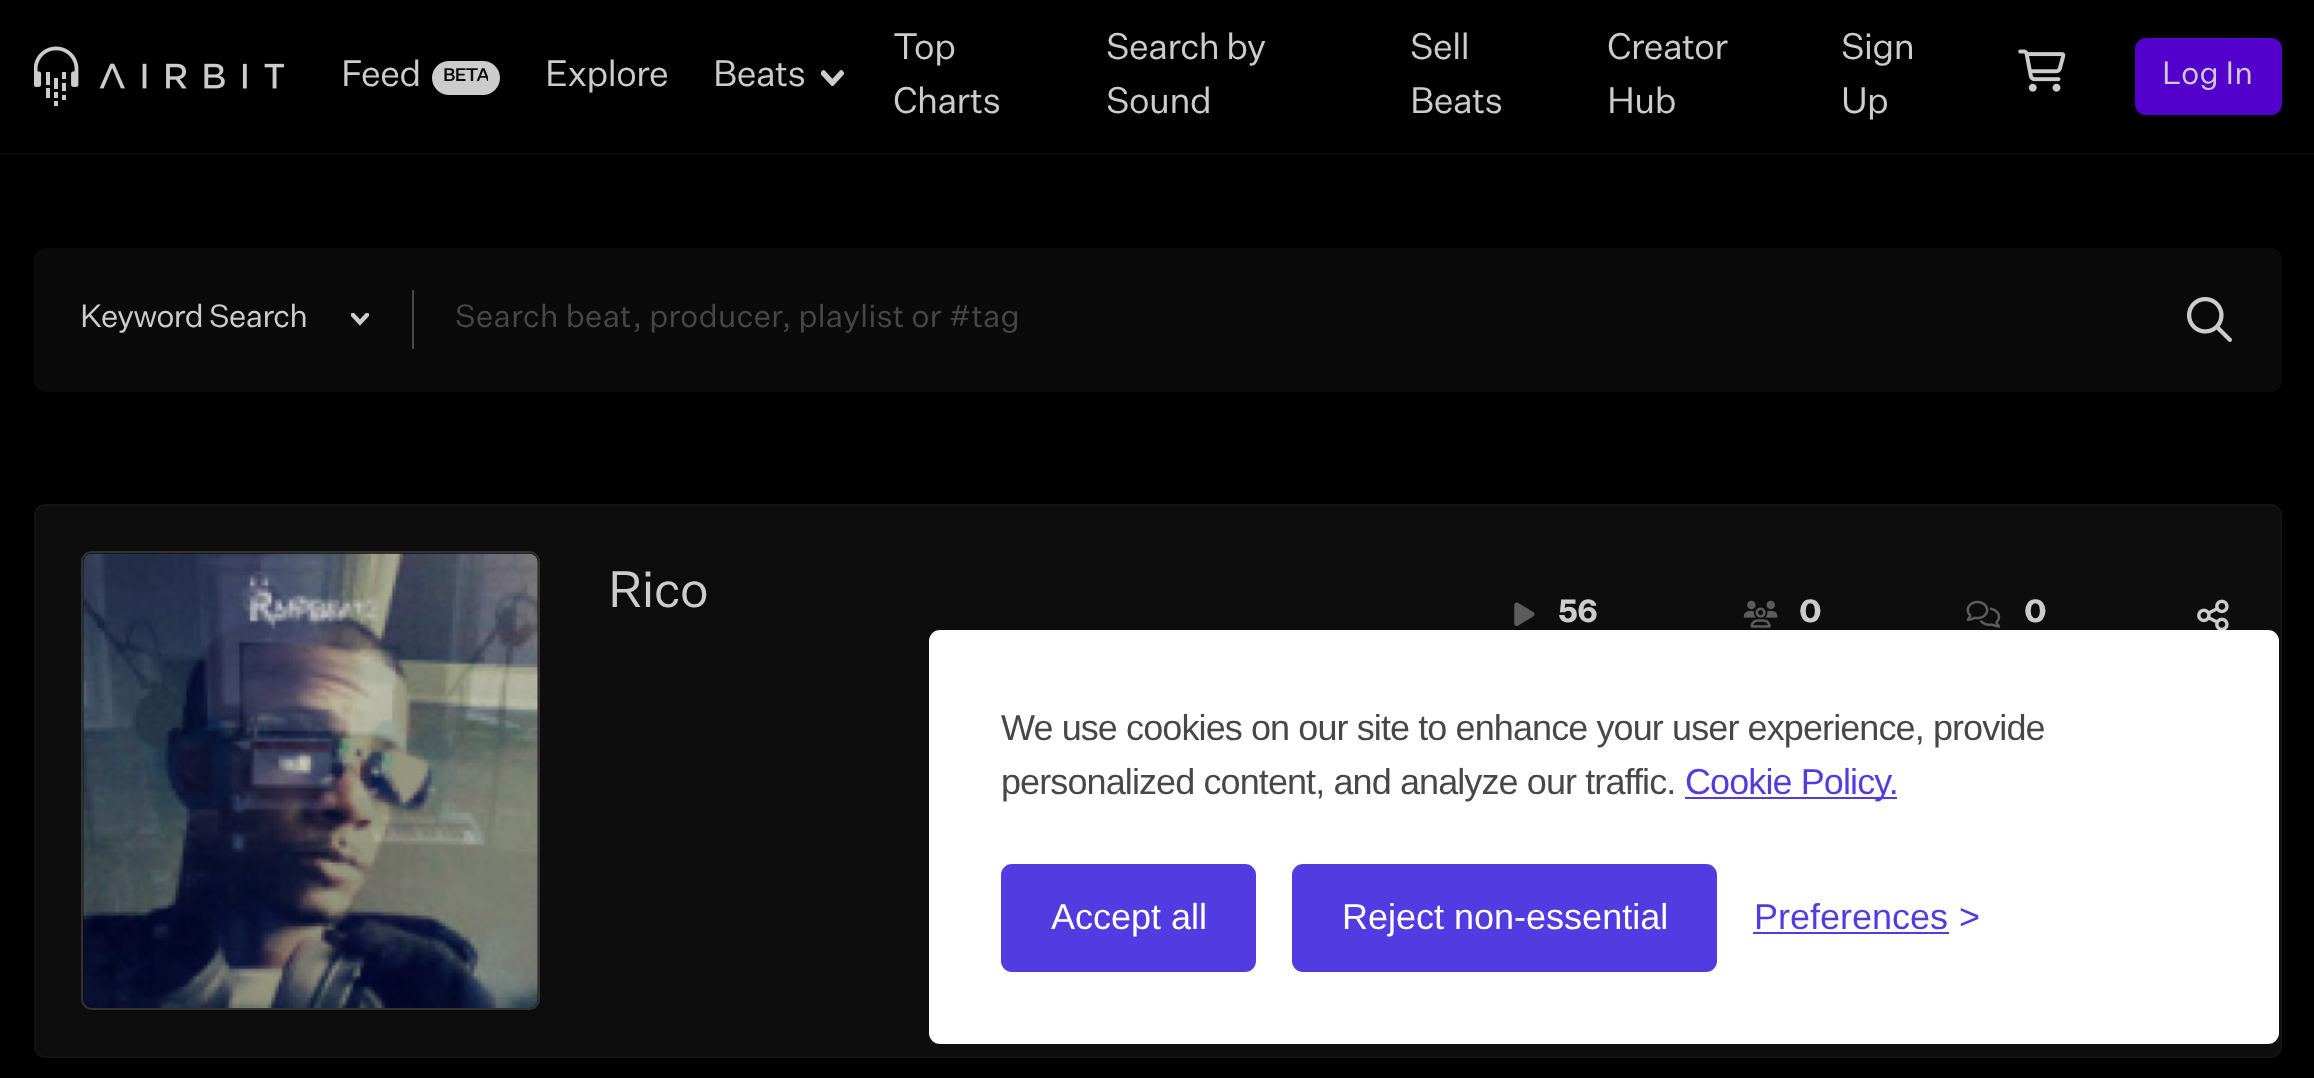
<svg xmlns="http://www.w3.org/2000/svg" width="2314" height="1078">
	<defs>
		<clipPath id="clip1"><rect x="443" y="65" width="45" height="23" /></clipPath>
	</defs>
	<rect width="100%" height="100%" fill="#000000" />
	<rect x="0" y="153" width="2314" height="2" fill="#0A0A0A" />
	<image x="34" y="46" width="250" height="60" href="assets/img1.png" />
	<text x="341" y="86" font-family="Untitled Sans" font-size="36" letter-spacing="-0.9" fill="#CCCCCC">Feed</text>
	<rect x="432" y="61" width="68" height="34" rx="17" fill="#CCCCCC" />
	<g clip-path="url(#clip1)">
		<text x="443" y="81" font-family="Untitled Sans" font-size="18" font-weight="500" letter-spacing="-0.9" fill="#0A0A0A">BETA</text>
	</g>
	<g font-family="Untitled Sans" font-size="36" letter-spacing="-0.9" fill="#CCCCCC">
		<text x="545" y="86">Explore</text>
		<text x="713" y="86">Beats</text>
	</g>
	<image x="821" y="70" width="23" height="16" href="assets/img2.png" />
	<g font-family="Untitled Sans" font-size="36" letter-spacing="-0.9" fill="#CCCCCC">
		<text x="893" y="59">Top</text>
		<text x="893" y="113">Charts</text>
		<text x="1106" y="59">Search by</text>
		<text x="1106" y="113">Sound</text>
		<text x="1410" y="59">Sell</text>
		<text x="1410" y="113">Beats</text>
		<text x="1607" y="59">Creator</text>
		<text x="1607" y="113">Hub</text>
		<text x="1841" y="59">Sign</text>
		<text x="1841" y="113">Up</text>
	</g>
	<image x="2018" y="49" width="48" height="43" href="assets/img3.png" />
	<rect x="2135" y="38" width="147" height="77" rx="11" fill="#5400CC" />
	<text x="2162" y="84" font-family="Untitled Sans" font-size="31.5" fill="#CCCCCC">Log In</text>
	<rect x="34" y="248" width="2248" height="144" rx="11" fill="#0A0A0A" />
	<rect x="412" y="290" width="2" height="59" fill="#474747" />
	<text x="80" y="327" font-family="Untitled Sans" font-size="31.5" letter-spacing="-0.9" fill="#CCCCCC">Keyword Search</text>
	<image x="351" y="313" width="18" height="13" href="assets/img4.png" />
	<text x="455" y="327" font-family="Untitled Sans" font-size="31.5" fill="#474747">Search beat, producer, playlist or #tag</text>
	<image x="2187" y="297" width="45" height="45" href="assets/img5.png" />
	<rect x="35" y="505" width="2246" height="552" rx="10" fill="#0D0D0D" stroke="#141313" stroke-width="2" />
	<rect x="82" y="552" width="457" height="457" rx="10" fill="none" stroke="#323232" stroke-width="2" />
	<image x="83" y="553" width="455" height="455" href="assets/img6.png" />
	<text x="608" y="607" font-family="Untitled Sans" font-size="50" letter-spacing="-0.9" fill="#CCCCCC">Rico</text>
	<image x="1514" y="602" width="21" height="24" href="assets/img7.png" />
	<text x="1558" y="622" font-family="Untitled Sans" font-size="31.5" font-weight="700" letter-spacing="-0.9" fill="#CCCCCC">56</text>
	<image x="1743" y="600" width="35" height="28" href="assets/img8.png" />
	<text x="1799" y="622" font-family="Untitled Sans" font-size="31.5" font-weight="700" letter-spacing="-0.9" fill="#CCCCCC">0</text>
	<image x="1966" y="600" width="35" height="28" href="assets/img9.png" />
	<text x="2024" y="622" font-family="Untitled Sans" font-size="31.5" font-weight="700" letter-spacing="-0.9" fill="#CCCCCC">0</text>
	<image x="2197" y="599" width="32" height="31" href="assets/img10.png" />
	<rect x="929" y="630" width="1350" height="414" rx="11" fill="#FFFFFF" />
	<g font-family="Liberation Sans" font-size="36" letter-spacing="-0.9" fill="#474747">
		<text x="1001" y="740">We use cookies on our site to enhance your user experience, provide</text>
		<text x="1001" y="794">personalized content, and analyze our traffic.</text>
	</g>
	<rect x="1685" y="797" width="212" height="2" fill="#533BE2" />
	<text x="1685" y="794" font-family="Liberation Sans" font-size="36" letter-spacing="-0.9" fill="#533BE2">Cookie Policy.</text>
	<rect x="1003.5" y="866.5" width="250" height="103" rx="8.5" fill="#533BE2" stroke="#533BE2" stroke-width="5" />
	<text x="1051" y="929" font-family="Liberation Sans" font-size="36" fill="#FFFFFF">Accept all</text>
	<rect x="1294.5" y="866.5" width="420" height="103" rx="8.5" fill="#533BE2" stroke="#533BE2" stroke-width="5" />
	<text x="1342" y="929" font-family="Liberation Sans" font-size="36" fill="#FFFFFF">Reject non-essential</text>
	<text x="1754" y="929" font-family="Liberation Sans" font-size="36" fill="#533BE2">Preferences</text>
	<rect x="1753" y="932" width="196" height="2" fill="#533BE2" />
	<text x="1959" y="929" font-family="Liberation Sans" font-size="36" fill="#533BE2">&gt;</text>
</svg>
